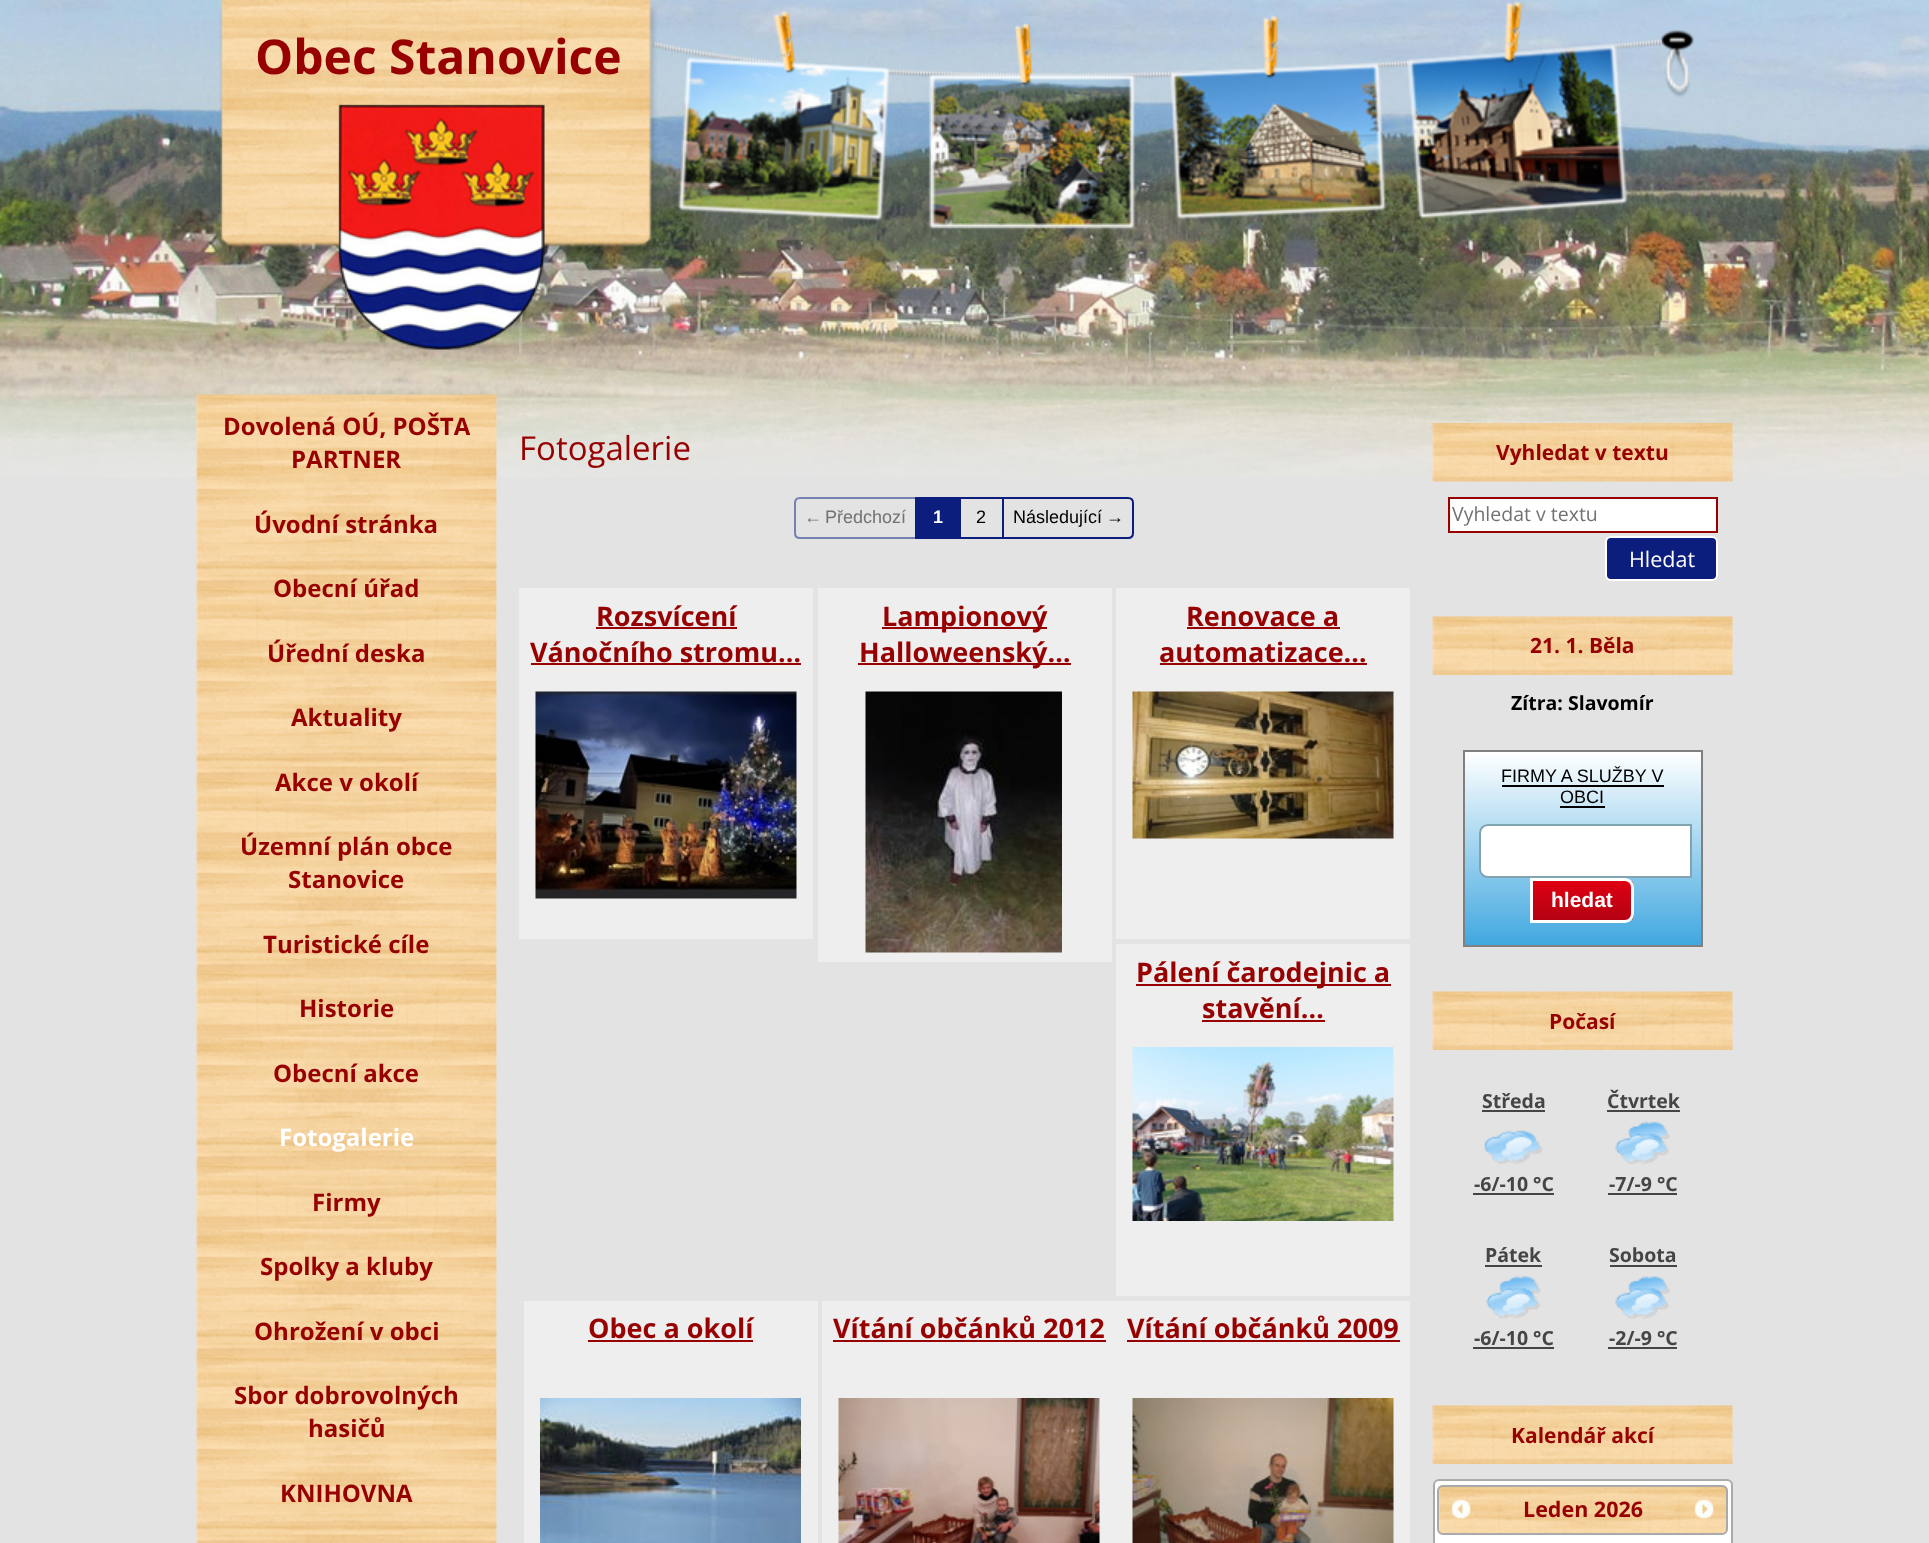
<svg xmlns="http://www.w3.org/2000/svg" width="1929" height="1543">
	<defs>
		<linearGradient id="g1" gradientUnits="userSpaceOnUse" x1="1583" y1="752" x2="1583" y2="945"><stop offset="0" stop-color="#FFFFFF" /><stop offset="1" stop-color="#41A8E0" /></linearGradient>
		<clipPath id="clip1"><path d="M1530 878H1625C1630 878 1634 882 1634 887V914C1634 919 1630 923 1625 923H1530Z" /></clipPath>
		<linearGradient id="g2" gradientUnits="userSpaceOnUse" x1="1582" y1="881" x2="1582" y2="920"><stop offset="0" stop-color="#DF0012" /><stop offset="1" stop-color="#B30213" /></linearGradient>
	</defs>
	<rect width="100%" height="100%" fill="#E3E3E3" />
	<image x="0" y="0" width="1929" height="477" href="assets/img1.png" />
	<image x="219" y="0" width="1475" height="257" href="assets/img2.png" />
	<text x="255" y="74" font-family="Open Sans" font-size="48" font-weight="700" fill="#970101">Obec Stanovice</text>
	<image x="338" y="104" width="207" height="246" href="assets/img3.png" />
	<image x="196" y="394" width="301" height="1149" href="assets/img4.png" />
	<g font-family="Open Sans" font-size="24" font-weight="700" fill="#970101">
		<text x="223" y="435">Dovolená OÚ, POŠTA</text>
		<text x="291" y="468">PARTNER</text>
		<text x="254" y="533">Úvodní stránka</text>
		<text x="273" y="597">Obecní úřad</text>
		<text x="267" y="662">Úřední deska</text>
		<text x="291" y="726">Aktuality</text>
		<text x="275" y="791">Akce v okolí</text>
		<text x="240" y="855">Územní plán obce</text>
		<text x="288" y="888">Stanovice</text>
		<text x="263" y="953">Turistické cíle</text>
		<text x="299" y="1017">Historie</text>
		<text x="273" y="1082">Obecní akce</text>
	</g>
	<text x="279" y="1146" font-family="Open Sans" font-size="24" font-weight="700" fill="#FFFFFF">Fotogalerie</text>
	<g font-family="Open Sans" font-size="24" font-weight="700" fill="#970101">
		<text x="312" y="1211">Firmy</text>
		<text x="260" y="1275">Spolky a kluby</text>
		<text x="254" y="1340">Ohrožení v obci</text>
		<text x="234" y="1404">Sbor dobrovolných</text>
		<text x="308" y="1437">hasičů</text>
		<text x="280" y="1502">KNIHOVNA</text>
	</g>
	<text x="519" y="460" font-family="Open Sans" font-size="33" fill="#970101">Fotogalerie</text>
	<path d="M800 498H916V538H800C797 538 795 536 795 533V503C795 500 797 498 800 498Z" fill="none" stroke="#7781B0" stroke-width="2" />
	<g font-family="Liberation Sans" font-size="18" fill="#727272">
		<text x="804" y="523">←</text>
		<text x="825" y="523">Předchozí</text>
	</g>
	<rect x="915" y="497" width="44" height="42" fill="#0B1E7D" />
	<text x="933" y="523" font-family="Liberation Sans" font-size="18" font-weight="700" fill="#FFFFFF">1</text>
	<rect x="960" y="498" width="43" height="40" fill="none" stroke="#0B1E7D" stroke-width="2" />
	<text x="976" y="523" font-family="Liberation Sans" font-size="18" fill="#000000">2</text>
	<path d="M1003 498H1128C1131 498 1133 500 1133 503V533C1133 536 1131 538 1128 538H1003Z" fill="none" stroke="#0B1E7D" stroke-width="2" />
	<g font-family="Liberation Sans" font-size="18" fill="#000000">
		<text x="1013" y="523">Následující</text>
		<text x="1106" y="523">→</text>
	</g>
	<rect x="519" y="588" width="294" height="351" fill="#EEEEEE" />
	<text x="596" y="626" font-family="Open Sans" font-size="27" font-weight="700" fill="#970101">Rozsvícení</text>
	<rect x="596" y="627" width="141" height="2" fill="#970101" />
	<text x="530" y="662" font-family="Open Sans" font-size="27" font-weight="700" fill="#970101">Vánočního stromu…</text>
	<rect x="531" y="663" width="270" height="2" fill="#970101" />
	<image x="535" y="691" width="262" height="208" href="assets/img5.png" />
	<rect x="818" y="588" width="294" height="374" fill="#EEEEEE" />
	<rect x="882" y="627" width="165" height="2" fill="#970101" />
	<text x="882" y="626" font-family="Open Sans" font-size="27" font-weight="700" fill="#970101">Lampionový</text>
	<rect x="858" y="663" width="213" height="2" fill="#970101" />
	<text x="859" y="662" font-family="Open Sans" font-size="27" font-weight="700" fill="#970101">Halloweenský…</text>
	<image x="865" y="691" width="197" height="262" href="assets/img6.png" />
	<rect x="1116" y="588" width="294" height="351" fill="#EEEEEE" />
	<text x="1186" y="626" font-family="Open Sans" font-size="27" font-weight="700" fill="#970101">Renovace a</text>
	<rect x="1187" y="627" width="153" height="2" fill="#970101" />
	<text x="1159" y="662" font-family="Open Sans" font-size="27" font-weight="700" fill="#970101">automatizace…</text>
	<rect x="1160" y="663" width="207" height="2" fill="#970101" />
	<image x="1132" y="691" width="262" height="148" href="assets/img7.png" />
	<rect x="1116" y="944" width="294" height="352" fill="#EEEEEE" />
	<rect x="1136" y="984" width="255" height="2" fill="#970101" />
	<g font-family="Open Sans" font-size="27" font-weight="700" fill="#970101">
		<text x="1136" y="982">Pálení čarodejnic a</text>
		<text x="1202" y="1018">stavění…</text>
	</g>
	<rect x="1202" y="1020" width="123" height="2" fill="#970101" />
	<image x="1132" y="1047" width="262" height="174" href="assets/img8.png" />
	<rect x="524" y="1301" width="294" height="242" fill="#EEEEEE" />
	<text x="588" y="1338" font-family="Open Sans" font-size="27" font-weight="700" fill="#970101">Obec a okolí</text>
	<rect x="588" y="1340" width="165" height="2" fill="#970101" />
	<image x="540" y="1398" width="261" height="145" href="assets/img9.png" />
	<rect x="822" y="1301" width="588" height="242" fill="#EEEEEE" />
	<text x="833" y="1338" font-family="Open Sans" font-size="27" font-weight="700" fill="#970101">Vítání občánků 2012</text>
	<rect x="833" y="1340" width="273" height="2" fill="#970101" />
	<image x="838" y="1398" width="262" height="145" href="assets/img10.png" />
	<text x="1127" y="1338" font-family="Open Sans" font-size="27" font-weight="700" fill="#970101">Vítání občánků 2009</text>
	<rect x="1127" y="1340" width="273" height="2" fill="#970101" />
	<image x="1132" y="1398" width="262" height="145" href="assets/img11.png" />
	<image x="1432" y="423" width="301" height="59" href="assets/img12.png" />
	<text x="1496" y="460" font-family="Open Sans" font-size="21" font-weight="700" fill="#970101">Vyhledat v textu</text>
	<rect x="1449" y="498" width="268" height="34" fill="#FFFFFF" stroke="#970101" stroke-width="2" />
	<text x="1452" y="521" font-family="Open Sans" font-size="19.5" fill="#727272">Vyhledat v textu</text>
	<rect x="1606" y="537" width="111" height="43" rx="5" fill="#0B1E7D" stroke="#FFFFFF" stroke-width="2" />
	<text x="1629" y="567" font-family="Open Sans" font-size="21.5" fill="#FFFFFF">Hledat</text>
	<image x="1432" y="616" width="301" height="59" href="assets/img13.png" />
	<text x="1530" y="653" font-family="Open Sans" font-size="21" font-weight="700" fill="#970101">21. 1. Běla</text>
	<text x="1511" y="710" font-family="Open Sans" font-size="19.5" font-weight="700" fill="#000000">Zítra: Slavomír</text>
	<rect x="1465" y="752" width="236" height="193" fill="url(#g1)" />
	<rect x="1464" y="751" width="238" height="195" fill="none" stroke="#808080" stroke-width="2" />
	<g font-family="Liberation Sans" font-size="18" fill="#000000">
		<text x="1501" y="782">FIRMY A SLUŽBY V</text>
		<text x="1560" y="803">OBCI</text>
	</g>
	<rect x="1502" y="785" width="162" height="2" fill="#000000" />
	<rect x="1560" y="806" width="45" height="2" fill="#000000" />
	<path d="M1488 825H1691V877H1488C1483.5 877 1480 873.5 1480 869V833C1480 828.5 1483.5 825 1488 825Z" fill="#FFFFFF" stroke="#82A4B0" stroke-width="2" />
	<g clip-path="url(#clip1)">
		<rect x="1533" y="881" width="101" height="39" fill="url(#g2)" />
	</g>
	<path d="M1531.5 879.5H1625C1629 879.5 1632.5 883 1632.5 887V914C1632.5 918 1629 921.5 1625 921.5H1531.5Z" fill="none" stroke="#FFFFFF" stroke-width="3" />
	<text x="1551" y="907" font-family="Liberation Sans" font-size="21" font-weight="700" fill="#FFFFFF">hledat</text>
	<image x="1432" y="991" width="301" height="59" href="assets/img13.png" />
	<text x="1549" y="1029" font-family="Open Sans" font-size="21" font-weight="700" fill="#970101">Počasí</text>
	<text x="1482" y="1108" font-family="Open Sans" font-size="19.5" font-weight="700" fill="#454545">Středa</text>
	<rect x="1482" y="1110" width="63" height="2" fill="#454545" />
	<image x="1483" y="1130" width="59" height="34" href="assets/img14.png" />
	<text x="1474" y="1191" font-family="Open Sans" font-size="19.5" font-weight="700" fill="#454545">-6/-10 °C</text>
	<rect x="1473" y="1193" width="81" height="2" fill="#454545" />
	<text x="1607" y="1108" font-family="Open Sans" font-size="19.5" font-weight="700" fill="#454545">Čtvrtek</text>
	<rect x="1607" y="1110" width="73" height="2" fill="#454545" />
	<image x="1615" y="1121" width="55" height="43" href="assets/img15.png" />
	<text x="1609" y="1191" font-family="Open Sans" font-size="19.5" font-weight="700" fill="#454545">-7/-9 °C</text>
	<rect x="1608" y="1193" width="69" height="2" fill="#454545" />
	<text x="1485" y="1262" font-family="Open Sans" font-size="19.5" font-weight="700" fill="#454545">Pátek</text>
	<rect x="1485" y="1265" width="57" height="2" fill="#454545" />
	<image x="1486" y="1276" width="55" height="43" href="assets/img16.png" />
	<text x="1474" y="1345" font-family="Open Sans" font-size="19.5" font-weight="700" fill="#454545">-6/-10 °C</text>
	<rect x="1473" y="1347" width="81" height="2" fill="#454545" />
	<text x="1609" y="1262" font-family="Open Sans" font-size="19.5" font-weight="700" fill="#454545">Sobota</text>
	<rect x="1610" y="1265" width="67" height="2" fill="#454545" />
	<image x="1615" y="1276" width="55" height="43" href="assets/img17.png" />
	<text x="1609" y="1345" font-family="Open Sans" font-size="19.5" font-weight="700" fill="#454545">-2/-9 °C</text>
	<rect x="1608" y="1347" width="69" height="2" fill="#454545" />
	<image x="1432" y="1405" width="301" height="59" href="assets/img13.png" />
	<text x="1511" y="1443" font-family="Open Sans" font-size="21" font-weight="700" fill="#970101">Kalendář akcí</text>
	<rect x="1434" y="1480" width="298" height="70" rx="5" fill="#FFFFFF" stroke="#AAAAAA" stroke-width="2" />
	<image x="1438" y="1485" width="290" height="50" href="assets/img18.png" />
	<rect x="1438" y="1486" width="289" height="48" rx="5" fill="none" stroke="#AAAAAA" stroke-width="2" />
	<image x="1451" y="1499" width="20" height="20" href="assets/img19.png" />
	<text x="1523" y="1517" font-family="Open Sans" font-size="21.5" font-weight="700" fill="#970101">Leden 2026</text>
	<image x="1694" y="1499" width="20" height="20" href="assets/img20.png" />
</svg>
